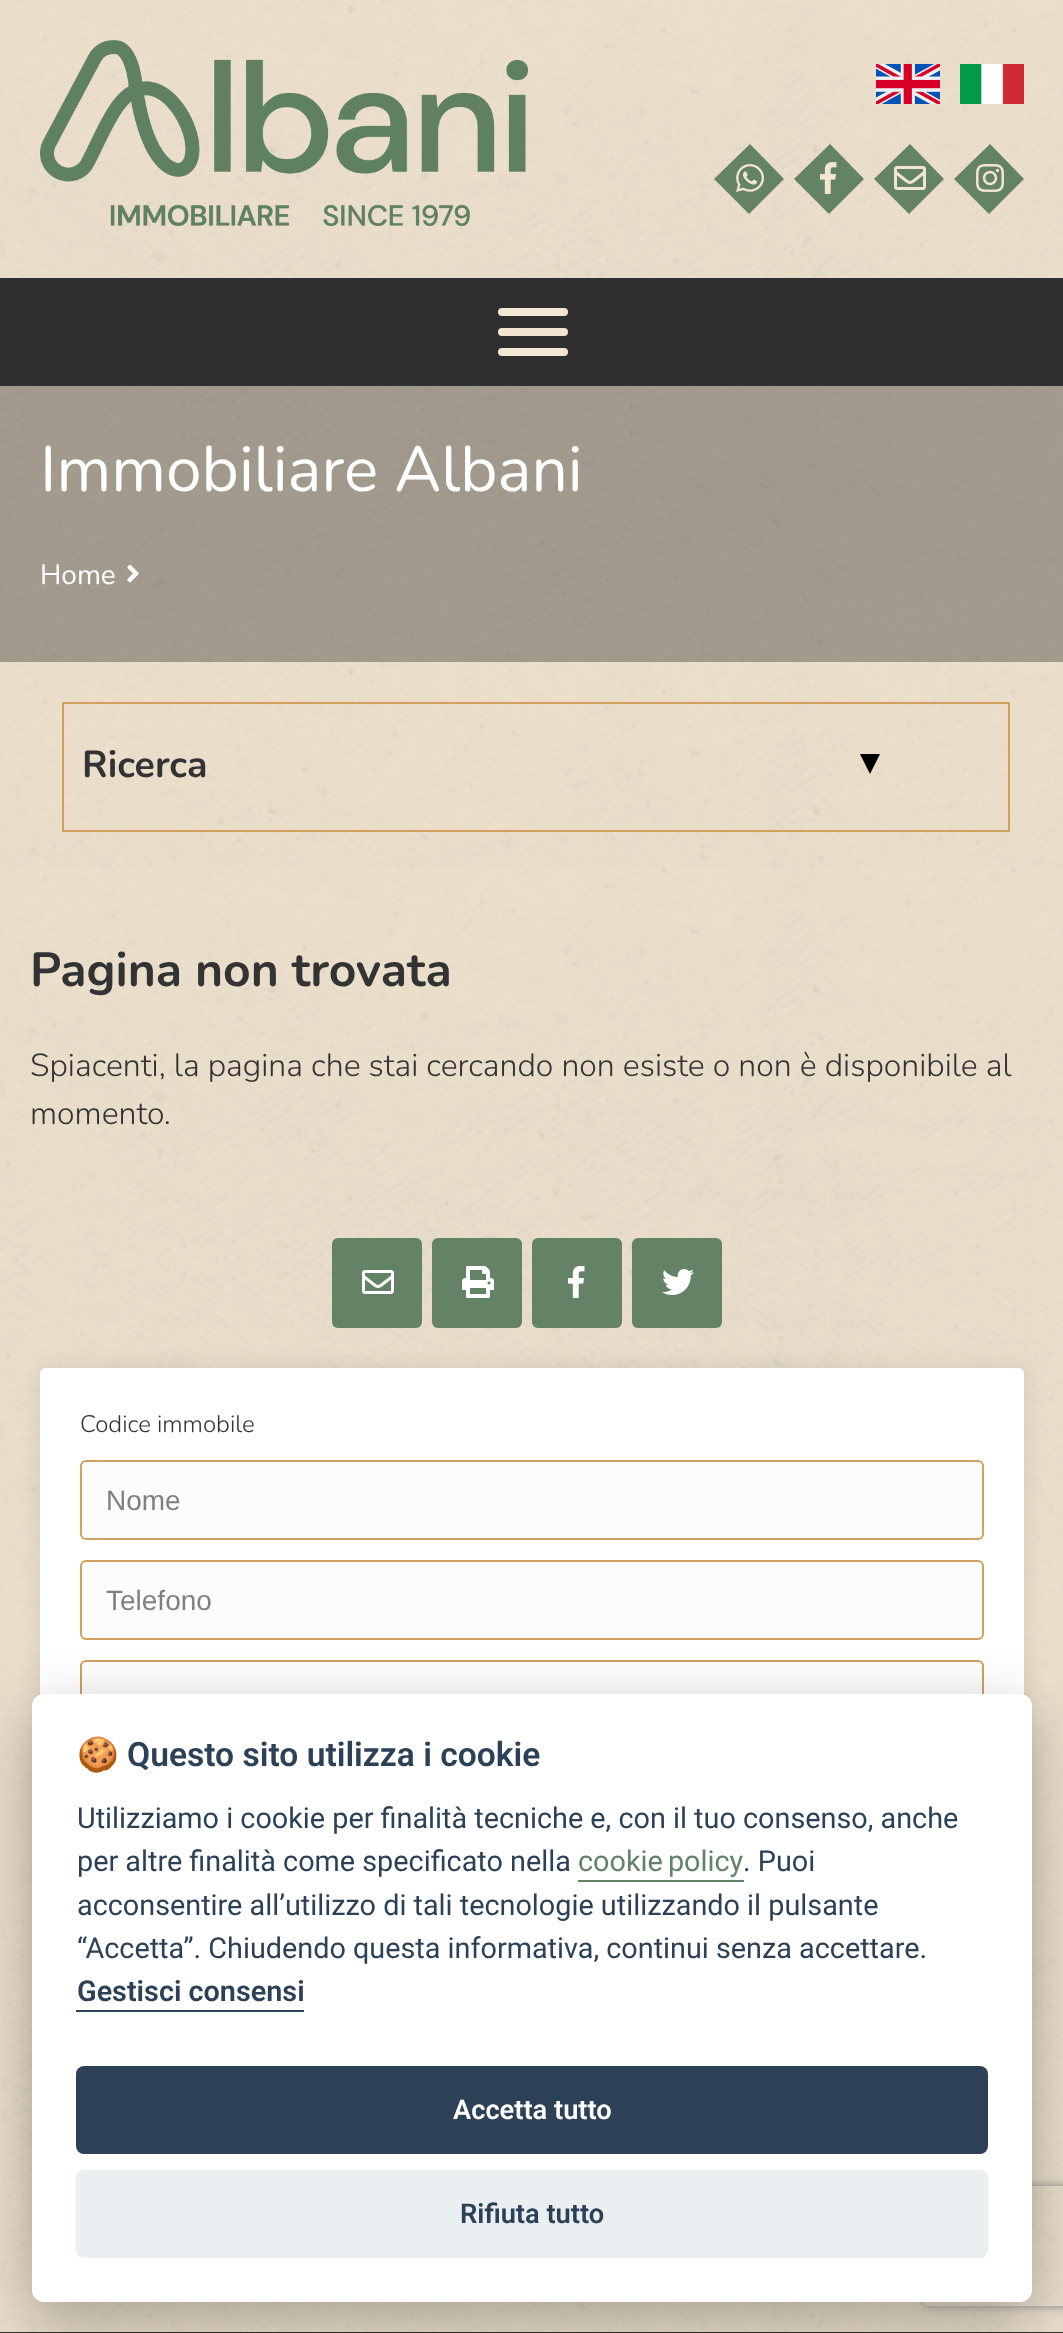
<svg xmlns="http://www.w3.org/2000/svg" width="1063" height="2333">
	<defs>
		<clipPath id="clip1"><path d="M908 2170H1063V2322H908ZM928 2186H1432C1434 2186 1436 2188 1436 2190V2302C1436 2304 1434 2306 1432 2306H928C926 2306 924 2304 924 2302V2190C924 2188 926 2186 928 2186Z" clip-rule="evenodd" /></clipPath>
	</defs>
	<rect width="100%" height="100%" fill="#F3E6D1" />
	<image x="0" y="0" width="1063" height="2332" href="assets/img1.png" />
	<image x="40" y="40" width="488" height="186" href="assets/img2.png" />
	<image x="876" y="64" width="64" height="40" href="assets/img3.png" />
	<image x="960" y="64" width="64" height="40" href="assets/img4.png" />
	<path d="M714 179L750 144L784 179L749 214Z" fill="#638266" />
	<image x="736" y="164" width="28" height="28" href="assets/img5.png" />
	<path d="M794 179L830 144L864 179L829 214Z" fill="#638266" />
	<image x="820" y="162" width="17" height="32" href="assets/img6.png" />
	<path d="M874 179L910 144L944 179L909 214Z" fill="#638266" />
	<image x="894" y="166" width="32" height="24" href="assets/img7.png" />
	<path d="M954 179L990 144L1024 179L989 214Z" fill="#638266" />
	<image x="976" y="164" width="28" height="28" href="assets/img8.png" />
	<rect x="0" y="278" width="1063" height="108" fill="#302E2F" />
	<rect x="498" y="328" width="70" height="8" rx="4" fill="#F3E6D1" />
	<rect x="498" y="308" width="70" height="8" rx="4" fill="#F3E6D1" />
	<rect x="498" y="348" width="70" height="8" rx="4" fill="#F3E6D1" />
	<rect x="0" y="386" width="1063" height="276" fill="#000000" fill-opacity="0.3" />
	<text x="40" y="491" font-family="Nunito" font-size="64" fill="#FFFFFF">Immobiliare Albani</text>
	<text x="40" y="584" font-family="Nunito" font-size="28" fill="#FFFFFF">Home</text>
	<image x="127" y="564" width="12" height="19" href="assets/img9.png" />
	<rect x="0" y="662" width="1063" height="206" fill="#F3E6D1" />
	<image x="0" y="662" width="1063" height="206" href="assets/img10.png" />
	<path d="M860 754H880L870 774Z" fill="#000000" />
	<rect x="63" y="703" width="946" height="128" fill="none" stroke="#D1A05E" stroke-width="2" />
	<text x="82" y="777" font-family="Nunito" font-size="37.5" font-weight="700" fill="#333333">Ricerca</text>
	<text x="30" y="986" font-family="Nunito" font-size="48" font-weight="700" fill="#333333">Pagina non trovata</text>
	<g font-family="Nunito" font-size="32" font-weight="300" fill="#333333">
		<text x="30" y="1076">Spiacenti, la pagina che stai cercando non esiste o non è disponibile al</text>
		<text x="30" y="1124">momento.</text>
	</g>
	<rect x="332" y="1238" width="90" height="90" rx="6" fill="#638266" />
	<image x="362" y="1270" width="32" height="24" href="assets/img11.png" />
	<rect x="432" y="1238" width="90" height="90" rx="6" fill="#638266" />
	<image x="462" y="1266" width="32" height="32" href="assets/img12.png" />
	<rect x="532" y="1238" width="90" height="90" rx="6" fill="#638266" />
	<image x="568" y="1266" width="17" height="32" href="assets/img13.png" />
	<rect x="632" y="1238" width="90" height="90" rx="6" fill="#638266" />
	<image x="662" y="1269" width="32" height="26" href="assets/img14.png" />
	<rect x="40" y="1368" width="984" height="864" rx="6" fill="#000000" fill-opacity="0.1" filter="blur(10px)" />
	<rect x="40" y="1368" width="984" height="864" rx="6" fill="#FFFFFF" />
	<text x="80" y="1432" font-family="Nunito" font-size="24" font-weight="300" fill="#333333">Codice immobile</text>
	<rect x="81" y="1461" width="902" height="78" rx="5" fill="#FCFCFC" stroke="#D1A05E" stroke-width="2" />
	<text x="106" y="1510" font-family="Liberation Sans" font-size="28" fill="#808080">Nome</text>
	<rect x="81" y="1561" width="902" height="78" rx="5" fill="#FCFCFC" stroke="#D1A05E" stroke-width="2" />
	<text x="106" y="1610" font-family="Liberation Sans" font-size="28" fill="#808080">Telefono</text>
	<rect x="81" y="1661" width="902" height="78" rx="5" fill="#FCFCFC" stroke="#D1A05E" stroke-width="2" />
	<rect x="0" y="2332" width="1063" height="1" fill="#302E2F" />
	<rect x="32" y="1714" width="1000" height="608" rx="12" fill="#020203" fill-opacity="0.28" filter="blur(30px)" />
	<g clip-path="url(#clip1)">
		<rect x="924" y="2186" width="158" height="120" rx="4" fill="#808080" filter="blur(5px)" />
	</g>
	<rect x="32" y="1694" width="1000" height="608" rx="12" fill="#FFFFFF" />
	<text x="77" y="1766" font-family="Noto Color Emoji" font-size="33.6" font-weight="700" fill="#2D4156">🍪</text>
	<text x="127" y="1766" font-family="Roboto" font-size="33.6" font-weight="600" fill="#2D4156">Questo sito utilizza i cookie</text>
	<g font-family="Roboto" font-size="28.8" fill="#2D4156">
		<text x="77" y="1828">Utilizziamo i cookie per finalità tecniche e, con il tuo consenso, anche</text>
		<text x="77" y="1871">per altre finalità come specificato nella</text>
	</g>
	<text x="578" y="1871" word-spacing="-2" font-family="Roboto" font-size="28.8" fill="#638266">cookie policy</text>
	<rect x="578" y="1880" width="166" height="2" fill="#638266" />
	<g font-family="Roboto" font-size="28.8" fill="#2D4156">
		<text x="743" y="1871">. Puoi</text>
		<text x="77" y="1915">acconsentire all’utilizzo di tali tecnologie utilizzando il pulsante</text>
		<text x="77" y="1958">“Accetta”. Chiudendo questa informativa, continui senza accettare.</text>
	</g>
	<text x="77" y="2001" font-family="Roboto" font-size="28.8" font-weight="600" fill="#2D4156">Gestisci consensi</text>
	<rect x="76" y="2010" width="228" height="2" fill="#2D4156" />
	<rect x="76" y="2066" width="912" height="88" rx="8" fill="#2D4156" />
	<text x="453" y="2119" font-family="Roboto" font-size="27.25" font-weight="600" fill="#FFFFFF">Accetta tutto</text>
	<rect x="76" y="2170" width="912" height="88" rx="8" fill="#EAEFF2" />
	<text x="460" y="2223" font-family="Roboto" font-size="27.25" font-weight="600" fill="#2D4156">Rifiuta tutto</text>
</svg>
